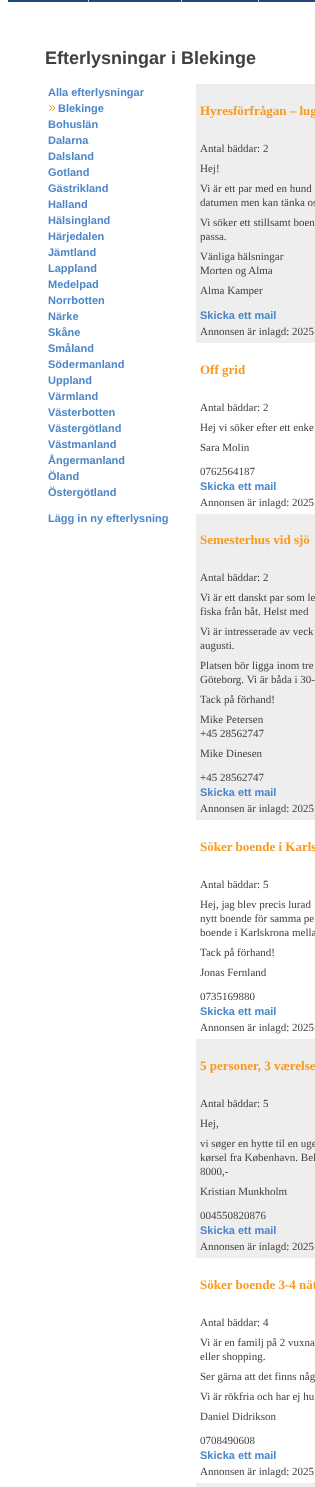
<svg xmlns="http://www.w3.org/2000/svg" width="315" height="1487">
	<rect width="100%" height="100%" fill="#FFFFFF" />
	<image x="8" y="0" width="307" height="2" href="assets/img1.png" />
	<image x="88" y="0" width="1" height="2" href="assets/img2.png" />
	<image x="181" y="0" width="1" height="2" href="assets/img2.png" />
	<image x="258" y="0" width="1" height="2" href="assets/img2.png" />
	<text x="45" y="64" font-family="Liberation Sans" font-size="18" font-weight="700" fill="#404040">Efterlysningar i Blekinge</text>
	<text x="48" y="96" font-family="Liberation Sans" font-size="11" font-weight="700" fill="#4B87CA">Alla efterlysningar</text>
	<image x="49" y="105" width="6" height="6" href="assets/img3.png" />
	<g font-family="Liberation Sans" font-size="11" font-weight="700" fill="#4B87CA">
		<text x="58" y="112">Blekinge</text>
		<text x="48" y="128">Bohuslän</text>
		<text x="48" y="144">Dalarna</text>
		<text x="48" y="160">Dalsland</text>
		<text x="48" y="176">Gotland</text>
		<text x="48" y="192">Gästrikland</text>
		<text x="48" y="208">Halland</text>
		<text x="48" y="224">Hälsingland</text>
		<text x="48" y="240">Härjedalen</text>
		<text x="48" y="256">Jämtland</text>
		<text x="48" y="272">Lappland</text>
		<text x="48" y="288">Medelpad</text>
		<text x="48" y="304">Norrbotten</text>
		<text x="48" y="320">Närke</text>
		<text x="48" y="336">Skåne</text>
		<text x="48" y="352">Småland</text>
		<text x="48" y="368">Södermanland</text>
		<text x="48" y="384">Uppland</text>
		<text x="48" y="400">Värmland</text>
		<text x="48" y="416">Västerbotten</text>
		<text x="48" y="432">Västergötland</text>
		<text x="48" y="448">Västmanland</text>
		<text x="48" y="464">Ångermanland</text>
		<text x="48" y="480">Öland</text>
		<text x="48" y="496">Östergötland</text>
		<text x="48" y="522">Lägg in ny efterlysning</text>
	</g>
	<rect x="196" y="84" width="119" height="259" fill="#EEEEEE" />
	<text x="200" y="115" font-family="Liberation Serif" font-size="13" font-weight="700" fill="#FB991B">Hyresförfrågan – lug</text>
	<g font-family="Liberation Serif" font-size="11" fill="#404040">
		<text x="200" y="152">Antal bäddar: 2</text>
		<text x="200" y="172">Hej!</text>
		<text x="200" y="192">Vi är ett par med en hund</text>
		<text x="200" y="206">datumen men kan tänka os</text>
		<text x="200" y="226">Vi söker ett stillsamt boen</text>
		<text x="200" y="240">passa.</text>
		<text x="200" y="260">Vänliga hälsningar</text>
		<text x="200" y="274">Morten og Alma</text>
		<text x="200" y="294">Alma Kamper</text>
	</g>
	<text x="200" y="319" font-family="Liberation Sans" font-size="11" font-weight="700" fill="#4B87CA">Skicka ett mail</text>
	<text x="200" y="335" font-family="Liberation Serif" font-size="11" fill="#404040">Annonsen är inlagd: 2025</text>
	<text x="200" y="374" font-family="Liberation Serif" font-size="13" font-weight="700" fill="#FB991B">Off grid</text>
	<g font-family="Liberation Serif" font-size="11" fill="#404040">
		<text x="200" y="411">Antal bäddar: 2</text>
		<text x="200" y="431">Hej vi söker efter ett enke</text>
		<text x="200" y="451">Sara Molin</text>
		<text x="200" y="475">0762564187</text>
	</g>
	<text x="200" y="490" font-family="Liberation Sans" font-size="11" font-weight="700" fill="#4B87CA">Skicka ett mail</text>
	<text x="200" y="506" font-family="Liberation Serif" font-size="11" fill="#404040">Annonsen är inlagd: 2025</text>
	<rect x="196" y="514" width="119" height="306" fill="#EEEEEE" />
	<text x="200" y="544" font-family="Liberation Serif" font-size="13" font-weight="700" fill="#FB991B">Semesterhus vid sjö</text>
	<g font-family="Liberation Serif" font-size="11" fill="#404040">
		<text x="200" y="581">Antal bäddar: 2</text>
		<text x="200" y="601">Vi är ett danskt par som le</text>
		<text x="200" y="615">fiska från båt. Helst med</text>
		<text x="200" y="635">Vi är intresserade av veck</text>
		<text x="200" y="649">augusti.</text>
		<text x="200" y="669">Platsen bör ligga inom tre</text>
		<text x="200" y="683">Göteborg. Vi är båda i 30-</text>
		<text x="200" y="703">Tack på förhand!</text>
		<text x="200" y="723">Mike Petersen</text>
		<text x="200" y="737">+45 28562747</text>
		<text x="200" y="757">Mike Dinesen</text>
		<text x="200" y="781">+45 28562747</text>
	</g>
	<text x="200" y="796" font-family="Liberation Sans" font-size="11" font-weight="700" fill="#4B87CA">Skicka ett mail</text>
	<text x="200" y="812" font-family="Liberation Serif" font-size="11" fill="#404040">Annonsen är inlagd: 2025</text>
	<text x="200" y="851" font-family="Liberation Serif" font-size="13" font-weight="700" fill="#FB991B">Söker boende i Karls</text>
	<g font-family="Liberation Serif" font-size="11" fill="#404040">
		<text x="200" y="888">Antal bäddar: 5</text>
		<text x="200" y="908">Hej, jag blev precis lurad</text>
		<text x="200" y="922">nytt boende för samma pe</text>
		<text x="200" y="936">boende i Karlskrona mella</text>
		<text x="200" y="956">Tack på förhand!</text>
		<text x="200" y="976">Jonas Fernland</text>
		<text x="200" y="1000">0735169880</text>
	</g>
	<text x="200" y="1015" font-family="Liberation Sans" font-size="11" font-weight="700" fill="#4B87CA">Skicka ett mail</text>
	<text x="200" y="1031" font-family="Liberation Serif" font-size="11" fill="#404040">Annonsen är inlagd: 2025</text>
	<rect x="196" y="1039" width="119" height="219" fill="#EEEEEE" />
	<text x="200" y="1070" font-family="Liberation Serif" font-size="13" font-weight="700" fill="#FB991B">5 personer, 3 værelse</text>
	<g font-family="Liberation Serif" font-size="11" fill="#404040">
		<text x="200" y="1107">Antal bäddar: 5</text>
		<text x="200" y="1127">Hej,</text>
		<text x="200" y="1147">vi søger en hytte til en uge</text>
		<text x="200" y="1161">kørsel fra København. Bel</text>
		<text x="200" y="1175">8000,-</text>
		<text x="200" y="1195">Kristian Munkholm</text>
		<text x="200" y="1219">004550820876</text>
	</g>
	<text x="200" y="1234" font-family="Liberation Sans" font-size="11" font-weight="700" fill="#4B87CA">Skicka ett mail</text>
	<text x="200" y="1250" font-family="Liberation Serif" font-size="11" fill="#404040">Annonsen är inlagd: 2025</text>
	<text x="200" y="1289" font-family="Liberation Serif" font-size="13" font-weight="700" fill="#FB991B">Söker boende 3-4 nät</text>
	<g font-family="Liberation Serif" font-size="11" fill="#404040">
		<text x="200" y="1326">Antal bäddar: 4</text>
		<text x="200" y="1346">Vi är en familj på 2 vuxna</text>
		<text x="200" y="1360">eller shopping.</text>
		<text x="200" y="1380">Ser gärna att det finns någ</text>
		<text x="200" y="1400">Vi är rökfria och har ej hu</text>
		<text x="200" y="1420">Daniel Didrikson</text>
		<text x="200" y="1444">0708490608</text>
	</g>
	<text x="200" y="1459" font-family="Liberation Sans" font-size="11" font-weight="700" fill="#4B87CA">Skicka ett mail</text>
	<text x="200" y="1475" font-family="Liberation Serif" font-size="11" fill="#404040">Annonsen är inlagd: 2025</text>
	<rect x="196" y="1483" width="119" height="4" fill="#EEEEEE" />
</svg>
